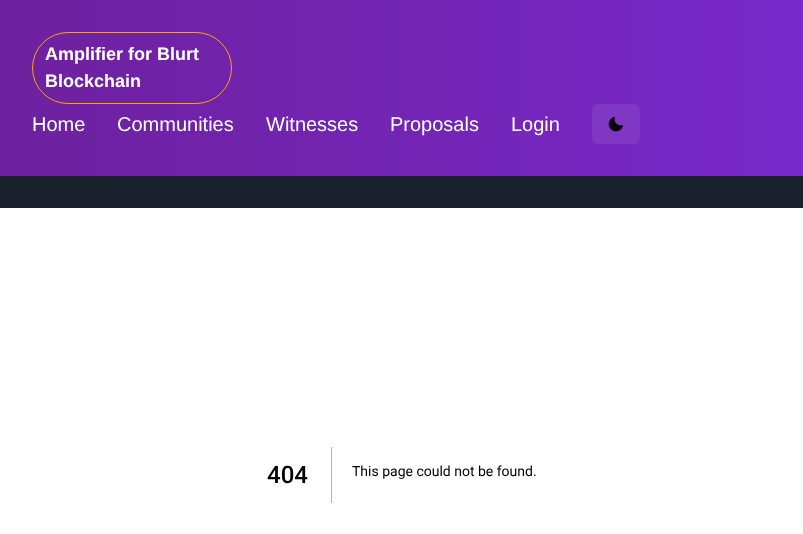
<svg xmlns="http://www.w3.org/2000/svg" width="803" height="534">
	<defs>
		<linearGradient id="g1" gradientUnits="userSpaceOnUse" x1="803" y1="88" x2="0" y2="88"><stop offset="0" stop-color="#7928CA" /><stop offset="1" stop-color="#6D219E" /></linearGradient>
	</defs>
	<rect width="100%" height="100%" fill="#1A202C" />
	<rect x="0" y="0" width="803" height="176" fill="url(#g1)" />
	<rect x="32.5" y="32.5" width="199" height="71" rx="35.5" fill="none" stroke="#FFA500" />
	<g font-family="Liberation Sans" font-size="18" font-weight="700" fill="#FFFFFF">
		<text x="45" y="60">Amplifier for Blurt</text>
		<text x="45" y="87">Blockchain</text>
	</g>
	<g font-family="Liberation Sans" font-size="20" fill="#FFFFFF">
		<text x="32" y="131">Home</text>
		<text x="117" y="131">Communities</text>
		<text x="266" y="131">Witnesses</text>
		<text x="390" y="131">Proposals</text>
		<text x="511" y="131">Login</text>
	</g>
	<rect x="592" y="104" width="48" height="40" rx="6" fill="#FFFFFF" fill-opacity="0.08" />
	<image x="608" y="116" width="16" height="16" href="assets/img1.png" />
	<rect x="0" y="208" width="803" height="326" fill="#FFFFFF" />
	<rect x="331" y="447" width="1" height="56" fill="#B3B3B3" />
	<text x="267" y="483" font-family="Roboto" font-size="24" font-weight="500" fill="#000000">404</text>
	<text x="352" y="476" font-family="Roboto" font-size="14" fill="#000000">This page could not be found.</text>
</svg>
